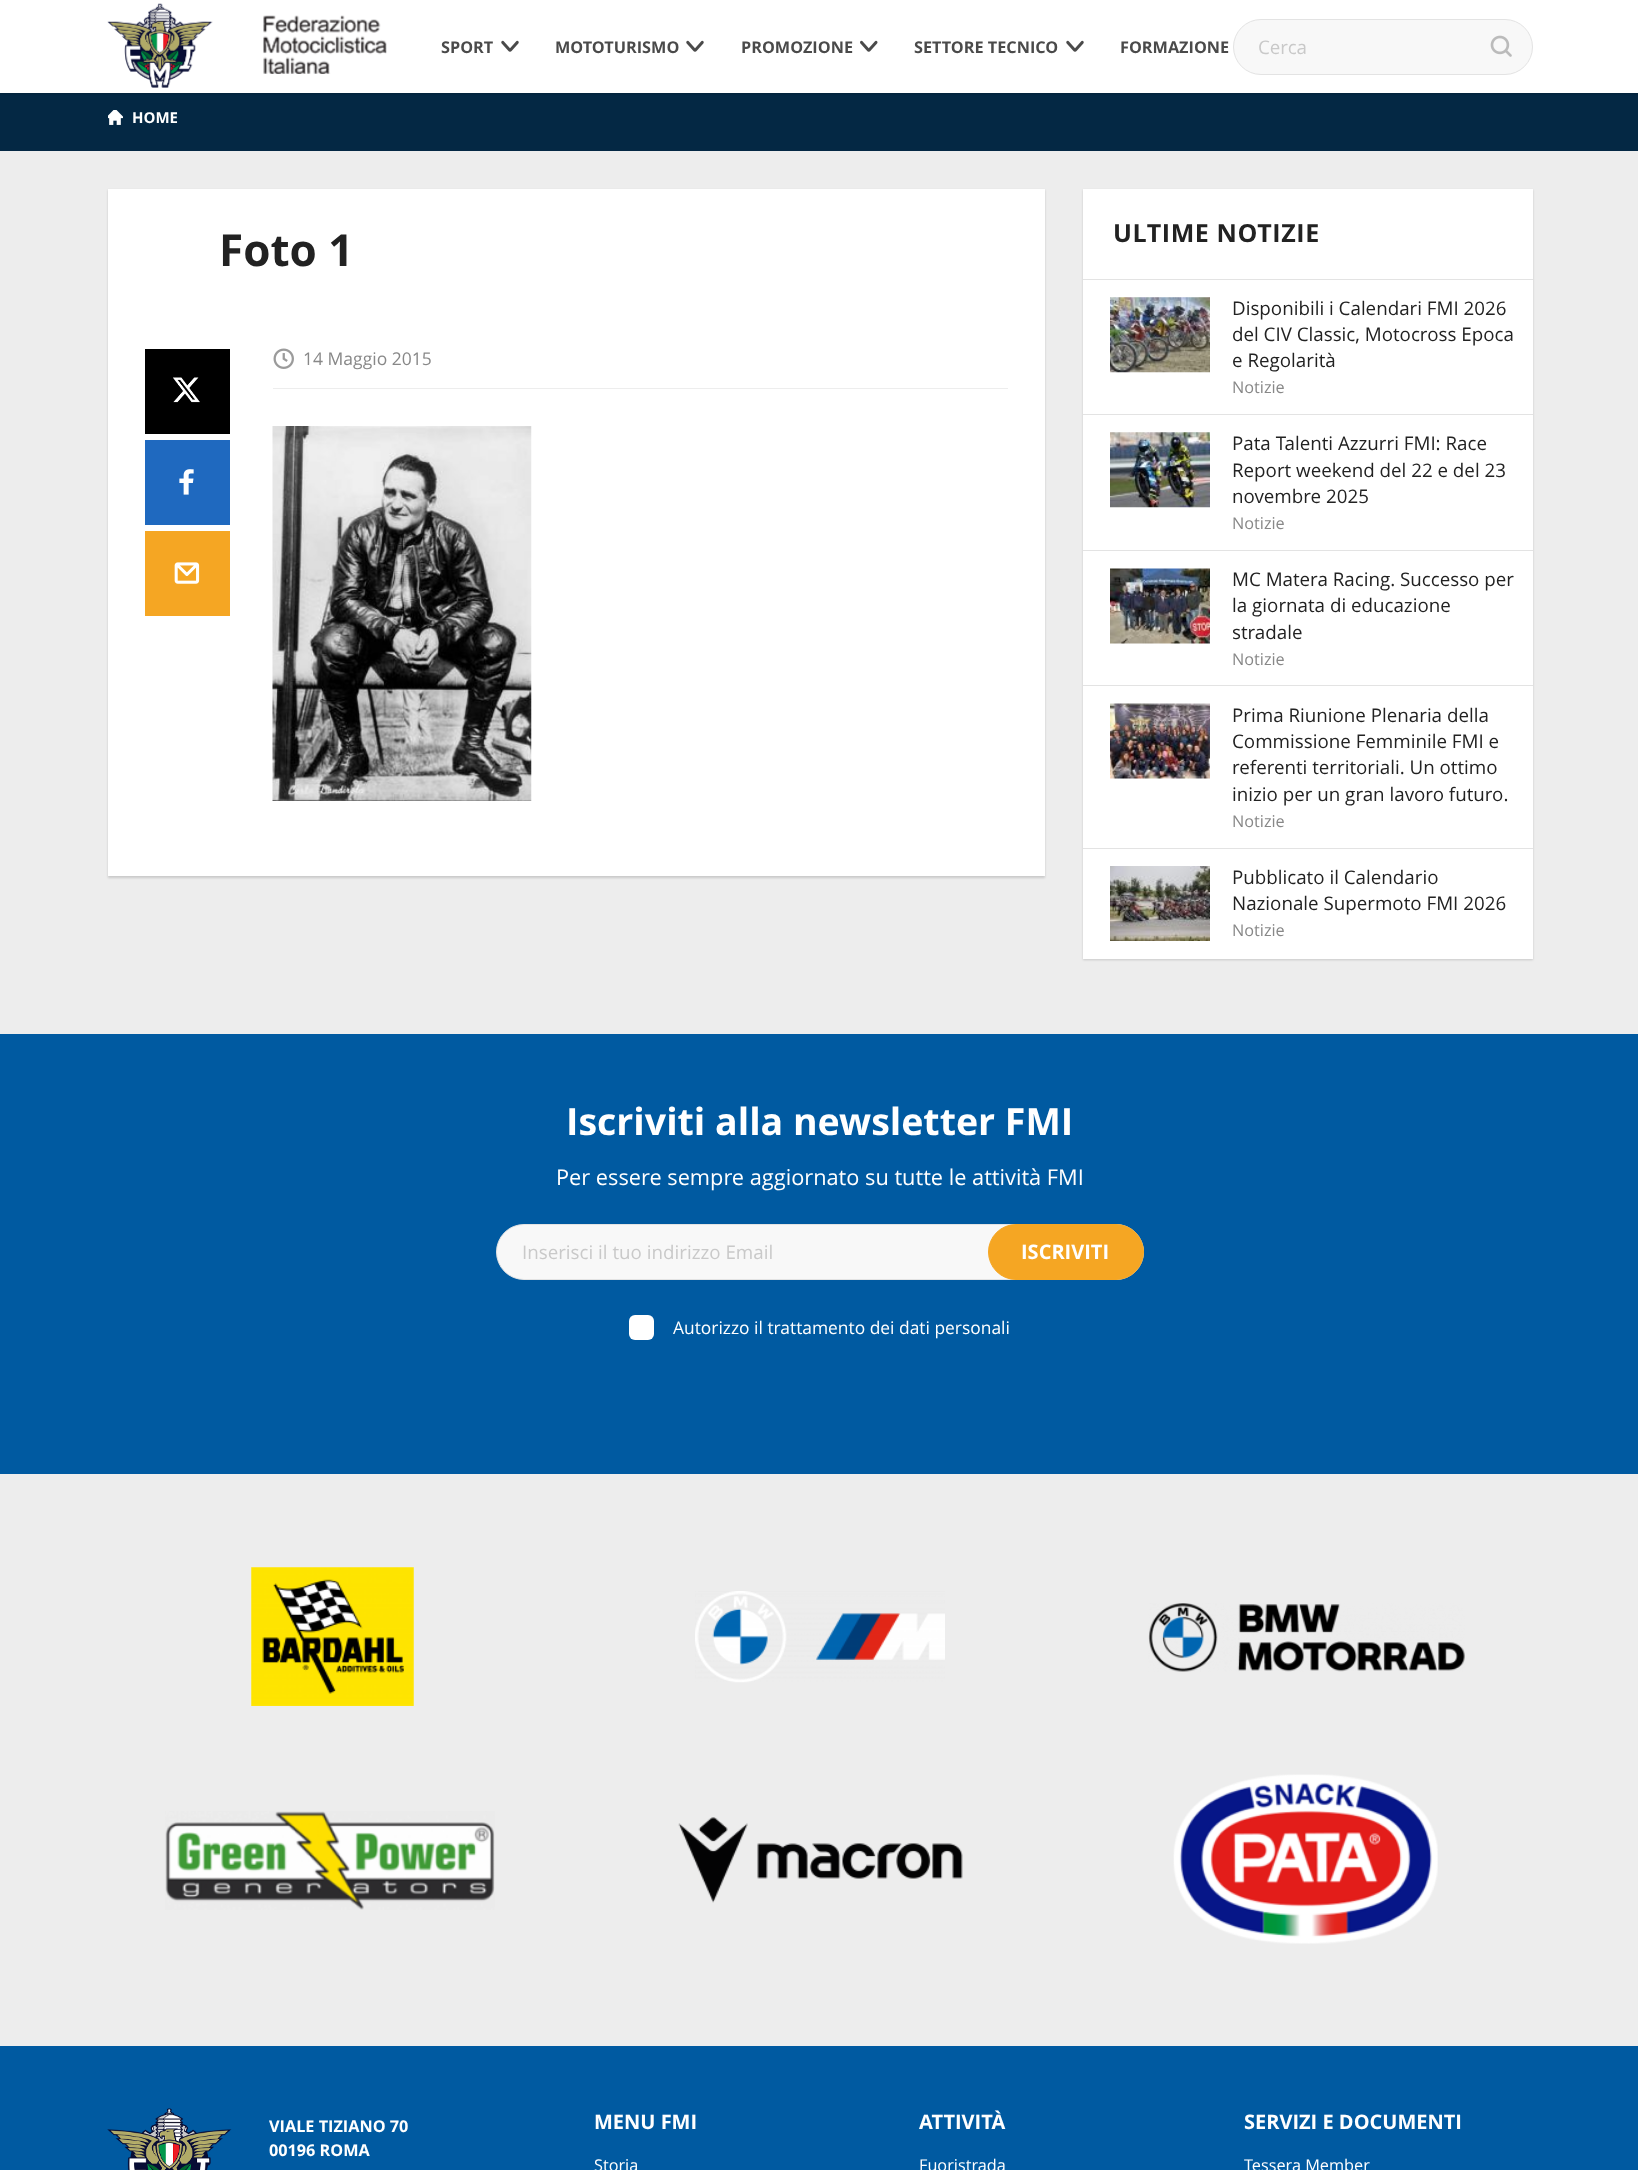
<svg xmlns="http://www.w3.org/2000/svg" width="1638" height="2170">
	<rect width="100%" height="100%" fill="#EDEDED" />
	<rect x="0" y="93" width="1638" height="58" fill="#042844" />
	<rect x="0" y="1" width="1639" height="93" fill="#000000" fill-opacity="0.15" filter="blur(1px)" />
	<rect x="0" y="0" width="1638" height="93" fill="#FFFFFF" />
	<image x="107" y="3" width="106" height="85" href="assets/img1.png" />
	<image x="263" y="15" width="124" height="59" href="assets/img2.png" />
	<text x="441" y="53" font-family="Open Sans" font-size="16.25" font-weight="700" fill="#4A4A4A">SPORT</text>
	<image x="501" y="40" width="18" height="12" href="assets/img3.png" />
	<text x="555" y="53" font-family="Open Sans" font-size="16.25" font-weight="700" fill="#4A4A4A">MOTOTURISMO</text>
	<image x="686" y="40" width="18" height="12" href="assets/img3.png" />
	<text x="741" y="53" font-family="Open Sans" font-size="16.25" font-weight="700" fill="#4A4A4A">PROMOZIONE</text>
	<image x="860" y="40" width="18" height="12" href="assets/img4.png" />
	<text x="914" y="53" font-family="Open Sans" font-size="16.25" font-weight="700" fill="#4A4A4A">SETTORE TECNICO</text>
	<image x="1066" y="40" width="18" height="12" href="assets/img3.png" />
	<text x="1120" y="53" font-family="Open Sans" font-size="16.25" font-weight="700" fill="#4A4A4A">FORMAZIONE</text>
	<rect x="1233.5" y="19.5" width="299" height="55" rx="27.5" fill="#F8F8F8" stroke="#E3E3E3" />
	<text x="1258" y="54" font-family="Open Sans" font-size="18.75" fill="#C9C9C9">Cerca</text>
	<image x="1490" y="35" width="22" height="22" href="assets/img5.png" />
	<image x="108" y="110" width="15" height="15" href="assets/img6.png" />
	<text x="132" y="123" font-family="Open Sans" font-size="15" font-weight="700" fill="#FFFFFF">HOME</text>
	<rect x="108" y="190" width="937" height="688" fill="#000000" fill-opacity="0.15" filter="blur(1px)" />
	<rect x="108" y="189" width="937" height="687" fill="#FFFFFF" />
	<text x="219" y="266" font-family="Open Sans" font-size="44" font-weight="700" fill="#222222">Foto 1</text>
	<rect x="145" y="349" width="85" height="85" fill="#000000" />
	<image x="173" y="377" width="27" height="26" href="assets/img7.png" />
	<rect x="145" y="440" width="85" height="85" fill="#1F69BF" />
	<image x="179" y="469" width="15" height="26" href="assets/img8.png" />
	<rect x="145" y="531" width="85" height="85" fill="#F5A623" />
	<image x="174" y="562" width="26" height="22" href="assets/img9.png" />
	<rect x="273" y="388" width="735" height="1" fill="#EDEDED" />
	<image x="273" y="348" width="21" height="21" href="assets/img10.png" />
	<text x="303" y="365" font-family="Open Sans" font-size="17.5" fill="#888888">14 Maggio 2015</text>
	<image x="272" y="426" width="260" height="375" href="assets/img11.png" />
	<rect x="1083" y="190" width="450" height="770" fill="#000000" fill-opacity="0.15" filter="blur(1px)" />
	<rect x="1083" y="189" width="450" height="770" fill="#FFFFFF" />
	<text x="1113" y="242" font-family="Open Sans" font-size="25" font-weight="700" letter-spacing="0.6" fill="#222222">ULTIME NOTIZIE</text>
	<rect x="1083" y="279" width="450" height="1" fill="#E3E3E3" />
	<image x="1110" y="297" width="100" height="76" href="assets/img12.png" />
	<g font-family="Open Sans" font-size="18.75" fill="#222222">
		<text x="1232" y="315">Disponibili i Calendari FMI 2026</text>
		<text x="1232" y="341">del CIV Classic, Motocross Epoca</text>
		<text x="1232" y="367">e Regolarità</text>
	</g>
	<text x="1232" y="393" font-family="Open Sans" font-size="16.25" fill="#888888">Notizie</text>
	<rect x="1083" y="414" width="450" height="1" fill="#E3E3E3" />
	<image x="1110" y="432" width="100" height="76" href="assets/img13.png" />
	<g font-family="Open Sans" font-size="18.75" fill="#222222">
		<text x="1232" y="450">Pata Talenti Azzurri FMI: Race</text>
		<text x="1232" y="477">Report weekend del 22 e del 23</text>
		<text x="1232" y="503">novembre 2025</text>
	</g>
	<text x="1232" y="529" font-family="Open Sans" font-size="16.25" fill="#888888">Notizie</text>
	<rect x="1083" y="550" width="450" height="1" fill="#E3E3E3" />
	<image x="1110" y="568" width="100" height="76" href="assets/img14.png" />
	<g font-family="Open Sans" font-size="18.75" fill="#222222">
		<text x="1232" y="586">MC Matera Racing. Successo per</text>
		<text x="1232" y="612">la giornata di educazione</text>
		<text x="1232" y="639">stradale</text>
	</g>
	<text x="1232" y="665" font-family="Open Sans" font-size="16.25" fill="#888888">Notizie</text>
	<rect x="1083" y="685" width="450" height="1" fill="#E3E3E3" />
	<image x="1110" y="703" width="100" height="76" href="assets/img15.png" />
	<g font-family="Open Sans" font-size="18.75" fill="#222222">
		<text x="1232" y="722">Prima Riunione Plenaria della</text>
		<text x="1232" y="748">Commissione Femminile FMI e</text>
		<text x="1232" y="774">referenti territoriali. Un ottimo</text>
		<text x="1232" y="801">inizio per un gran lavoro futuro.</text>
	</g>
	<text x="1232" y="827" font-family="Open Sans" font-size="16.25" fill="#888888">Notizie</text>
	<rect x="1083" y="848" width="450" height="1" fill="#E3E3E3" />
	<image x="1110" y="866" width="100" height="75" href="assets/img16.png" />
	<g font-family="Open Sans" font-size="18.75" fill="#222222">
		<text x="1232" y="884">Pubblicato il Calendario</text>
		<text x="1232" y="910">Nazionale Supermoto FMI 2026</text>
	</g>
	<text x="1232" y="936" font-family="Open Sans" font-size="16.25" fill="#888888">Notizie</text>
	<rect x="0" y="1034" width="1638" height="440" fill="#005AA1" />
	<text x="566" y="1135" font-family="Open Sans" font-size="37.5" font-weight="700" fill="#FFFFFF">Iscriviti alla newsletter FMI</text>
	<text x="556" y="1185" font-family="Open Sans" font-size="21.75" fill="#FFFFFF">Per essere sempre aggiornato su tutte le attività FMI</text>
	<rect x="496.5" y="1224.5" width="647" height="55" rx="27.5" fill="#F8F8F8" stroke="#E3E3E3" />
	<text x="522" y="1259" font-family="Open Sans" font-size="18.75" fill="#C9C9C9">Inserisci il tuo indirizzo Email</text>
	<rect x="988.5" y="1224.5" width="155" height="55" rx="27.5" fill="#F5A623" stroke="#F5A623" />
	<text x="1021" y="1259" font-family="Open Sans" font-size="20" font-weight="700" fill="#FFFFFF">ISCRIVITI</text>
	<rect x="629" y="1315" width="25" height="25" rx="6" fill="#FFFFFF" />
	<text x="673" y="1334" font-family="Open Sans" font-size="17.4" fill="#FFFFFF">Autorizzo il trattamento dei dati personali</text>
	<image x="251" y="1567" width="163" height="139" href="assets/img17.png" />
	<image x="695" y="1591" width="250" height="92" href="assets/img18.png" />
	<image x="1148" y="1603" width="317" height="69" href="assets/img19.png" />
	<image x="165" y="1811" width="330" height="99" href="assets/img20.png" />
	<image x="678" y="1817" width="285" height="86" href="assets/img21.png" />
	<image x="1173" y="1774" width="265" height="170" href="assets/img22.png" />
	<rect x="0" y="2046" width="1638" height="124" fill="#005AA1" />
	<image x="107" y="2108" width="125" height="62" href="assets/img23.png" />
	<g font-family="Open Sans" font-size="16.25" font-weight="700" fill="#FFFFFF">
		<text x="269" y="2132">VIALE TIZIANO 70</text>
		<text x="269" y="2156">00196 ROMA</text>
	</g>
	<text x="594" y="2129" font-family="Open Sans" font-size="20" font-weight="700" fill="#FFFFFF">MENU FMI</text>
	<text x="594" y="2171" font-family="Open Sans" font-size="16.25" fill="#FFFFFF">Storia</text>
	<text x="919" y="2129" font-family="Open Sans" font-size="20" font-weight="700" fill="#FFFFFF">ATTIVITÀ</text>
	<text x="919" y="2171" font-family="Open Sans" font-size="16.25" fill="#FFFFFF">Fuoristrada</text>
	<text x="1244" y="2129" font-family="Open Sans" font-size="20" font-weight="700" fill="#FFFFFF">SERVIZI E DOCUMENTI</text>
	<text x="1244" y="2171" font-family="Open Sans" font-size="16.25" fill="#FFFFFF">Tessera Member</text>
</svg>
